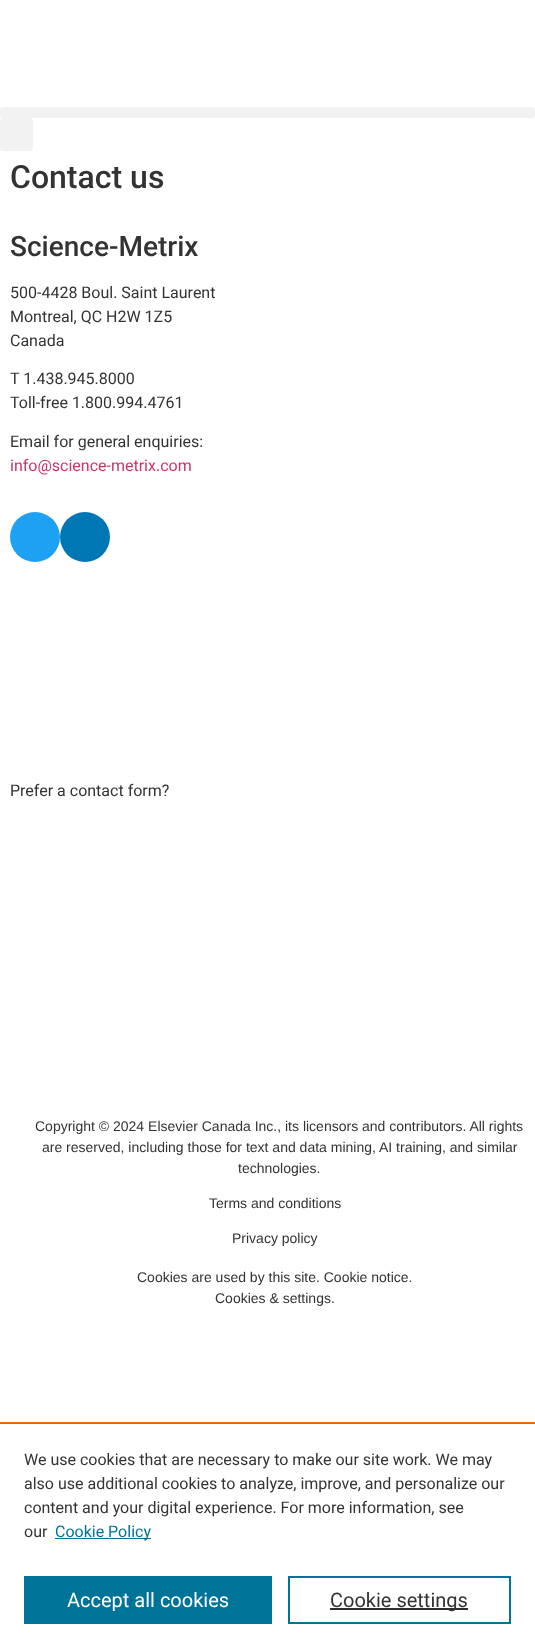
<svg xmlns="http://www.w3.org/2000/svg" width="535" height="1648">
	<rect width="100%" height="100%" fill="#FFFFFF" />
	<rect x="0" y="107" width="535" height="11" rx="3" fill="#F2F2F2" />
	<rect x="0" y="118" width="33" height="33" rx="3" fill="#F2F2F2" />
	<text x="10" y="188" font-family="Roboto" font-size="32" font-weight="500" fill="#333333">Contact us</text>
	<text x="10" y="256" font-family="Roboto" font-size="28" font-weight="500" fill="#333333">Science-Metrix</text>
	<g font-family="Roboto" font-size="16" fill="#333333">
		<text x="10" y="298">500-4428 Boul. Saint Laurent</text>
		<text x="10" y="322">Montreal, QC H2W 1Z5</text>
		<text x="10" y="346">Canada</text>
		<text x="10" y="384">T 1.438.945.8000</text>
		<text x="10" y="408">Toll-free 1.800.994.4761</text>
		<text x="10" y="447">Email for general enquiries:</text>
	</g>
	<text x="10" y="471" font-family="Roboto" font-size="16" fill="#CC3366">info@science-metrix.com</text>
	<circle cx="35" cy="537" r="25" fill="#1DA1F2" />
	<circle cx="85" cy="537" r="25" fill="#0077B5" />
	<text x="10" y="796" font-family="Roboto" font-size="16" fill="#333333">Prefer a contact form?</text>
	<g font-family="Liberation Sans" font-size="14" fill="#333333">
		<text x="35" y="1131">Copyright © 2024 Elsevier Canada Inc., its licensors and contributors. All rights</text>
		<text x="42" y="1152">are reserved, including those for text and data mining, AI training, and similar</text>
		<text x="238" y="1173">technologies.</text>
		<text x="209" y="1208">Terms and conditions</text>
		<text x="232" y="1243">Privacy policy</text>
		<text x="137" y="1282">Cookies are used by this site. Cookie notice.</text>
		<text x="215" y="1303">Cookies &amp; settings.</text>
	</g>
	<rect x="0" y="1422" width="535" height="2" fill="#EB6500" />
	<g font-family="Roboto" font-size="16" fill="#333333">
		<text x="24" y="1465">We use cookies that are necessary to make our site work. We may</text>
		<text x="24" y="1489">also use additional cookies to analyze, improve, and personalize our</text>
		<text x="24" y="1513">content and your digital experience. For more information, see</text>
		<text x="24" y="1537">our</text>
	</g>
	<rect x="55" y="1538" width="96" height="1" fill="#007398" />
	<text x="55" y="1537" font-family="Roboto" font-size="16" fill="#007398">Cookie Policy</text>
	<rect x="24" y="1576" width="248" height="48" fill="#007398" />
	<text x="67" y="1607" font-family="Roboto" font-size="20" fill="#FFFFFF">Accept all cookies</text>
	<rect x="289" y="1577" width="221" height="46" fill="none" stroke="#007398" stroke-width="2" />
	<rect x="330" y="1608" width="138" height="2" fill="#2E2E2E" />
	<text x="330" y="1607" font-family="Roboto" font-size="20" fill="#333333">Cookie settings</text>
</svg>
